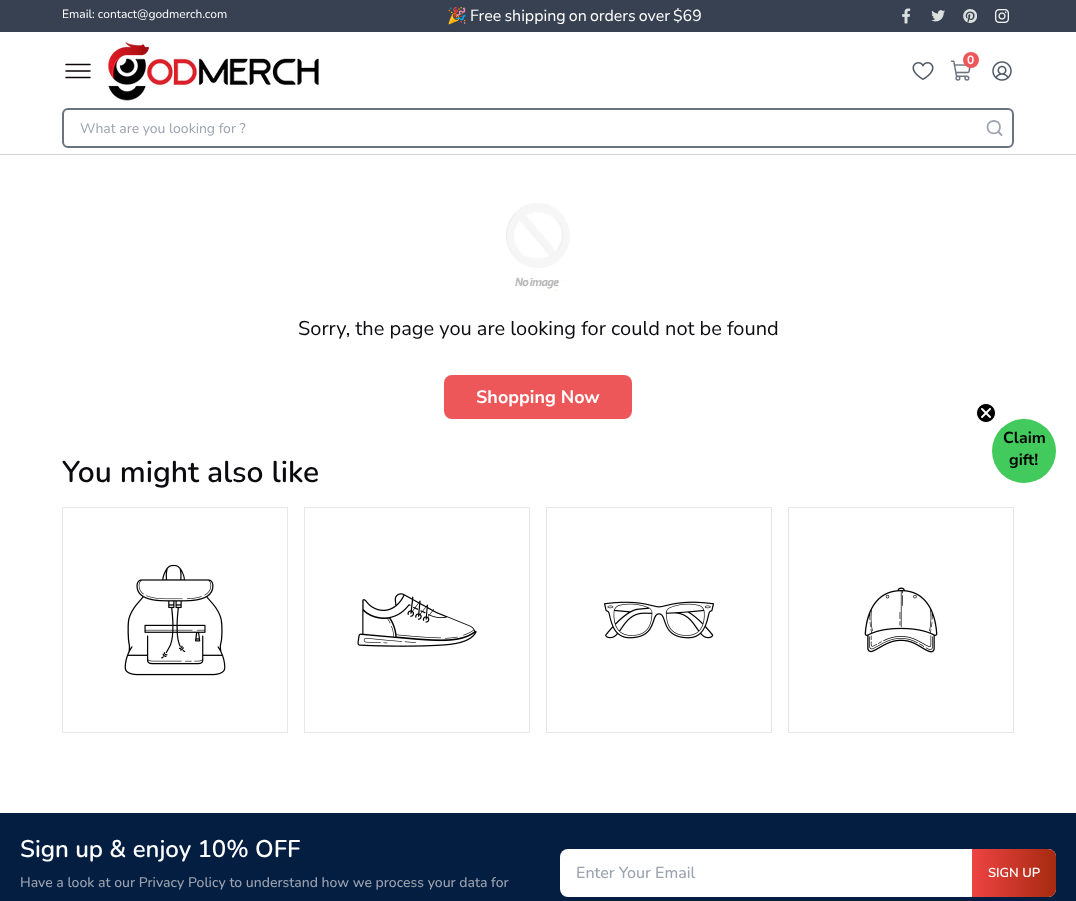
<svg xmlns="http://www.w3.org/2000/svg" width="1076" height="901">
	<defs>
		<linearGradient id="g1" gradientUnits="userSpaceOnUse" x1="972" y1="873" x2="1056" y2="873"><stop offset="0" stop-color="#EE4343" /><stop offset="1" stop-color="#A62A0F" /></linearGradient>
	</defs>
	<rect width="100%" height="100%" fill="#FFFFFF" />
	<rect x="0" y="0" width="1076" height="32" fill="#374151" />
	<text x="62" y="18" font-family="Nunito Sans" font-size="12" fill="#FFFFFF">Email: contact@godmerch.com</text>
	<text x="447" y="21" font-family="Noto Color Emoji" font-size="16" fill="#FFFFFF">️🎉</text>
	<text x="470" y="21" word-spacing="-1" font-family="Nunito Sans" font-size="16" fill="#FFFFFF">Free shipping on orders over $69</text>
	<image x="902" y="8" width="9" height="16" href="assets/img1.png" />
	<image x="931" y="10" width="14" height="12" href="assets/img2.png" />
	<image x="963" y="9" width="14" height="14" href="assets/img3.png" />
	<image x="995" y="9" width="14" height="14" href="assets/img4.png" />
	<rect x="0" y="154" width="1076" height="1" fill="#D1D1D6" />
	<path d="M66 64.5H90M66 71H90M66 77.5H90" fill="none" stroke="#0C0507" stroke-width="1.5" stroke-linecap="round" />
	<image x="106" y="41" width="213" height="60" href="assets/img5.png" />
	<image x="950" y="60" width="21" height="21" href="assets/img6.png" />
	<circle cx="971" cy="60" r="8" fill="#EE575A" />
	<text x="967" y="64" font-family="Nunito Sans" font-size="12" font-weight="700" fill="#FFFFFF">0</text>
	<image x="912" y="62" width="22" height="18" href="assets/img7.png" />
	<image x="992" y="61" width="20" height="20" href="assets/img8.png" />
	<rect x="63" y="109" width="950" height="38" rx="5" fill="none" stroke="#6B7280" stroke-width="2" />
	<text x="80" y="133" font-family="Nunito Sans" font-size="14" fill="#9CA3AF">What are you looking for ?</text>
	<path d="M1001.5 135L998 131.5M1000 127C1000 135.5 987.5 135.5 987.5 127C987.5 119 1000 119 1000 127Z" fill="none" stroke="#9CA3AF" stroke-width="1.8" stroke-linecap="round" stroke-linejoin="round" />
	<image x="506" y="203" width="64" height="88" href="assets/img9.png" />
	<text x="298" y="335" font-family="Nunito Sans" font-size="20" fill="#0B0A0F">Sorry, the page you are looking for could not be found</text>
	<rect x="444" y="375" width="188" height="44" rx="8" fill="#EE575A" />
	<text x="476" y="403" font-family="Nunito Sans" font-size="18" font-weight="700" fill="#FFFFFF">Shopping Now</text>
	<text x="62" y="482" font-family="Nunito" font-size="30" font-weight="600" fill="#0B0A0F">You might also like</text>
	<rect x="62.5" y="507.5" width="225" height="225" fill="none" stroke="#E5E7EB" />
	<image x="124" y="564" width="102" height="112" href="assets/img10.png" />
	<rect x="304.5" y="507.5" width="225" height="225" fill="none" stroke="#E5E7EB" />
	<image x="357" y="593" width="120" height="54" href="assets/img11.png" />
	<rect x="546.5" y="507.5" width="225" height="225" fill="none" stroke="#E5E7EB" />
	<image x="604" y="601" width="110" height="38" href="assets/img12.png" />
	<rect x="788.5" y="507.5" width="225" height="225" fill="none" stroke="#E5E7EB" />
	<image x="864" y="587" width="74" height="66" href="assets/img13.png" />
	<rect x="0" y="813" width="1076" height="88" fill="#041E42" />
	<text x="20" y="857" font-family="Nunito" font-size="24" font-weight="600" fill="#FFFFFF">Sign up &amp; enjoy 10% OFF</text>
	<text x="20" y="887" font-family="Nunito" font-size="14" font-weight="500" fill="#9CA3AF">Have a look at our Privacy Policy to understand how we process your data for</text>
	<rect x="560" y="849" width="496" height="48" rx="8" fill="#FFFFFF" />
	<text x="576" y="878" font-family="Nunito" font-size="16" font-weight="500" fill="#9CA3AF">Enter Your Email</text>
	<path d="M972 849H1048C1052.5 849 1056 852.5 1056 857V889C1056 893.5 1052.5 897 1048 897H972Z" fill="url(#g1)" />
	<text x="988" y="877" font-family="Nunito" font-size="13" font-weight="600" fill="#FFFFFF">SIGN UP</text>
	<circle cx="1024" cy="451" r="32" fill="#42CB5C" />
	<image x="976" y="403" width="20" height="20" href="assets/img14.png" />
	<g font-family="Nunito Sans" font-size="16" font-weight="700" fill="#000000">
		<text x="1003" y="443">Claim</text>
		<text x="1009" y="465">gift!</text>
	</g>
</svg>
